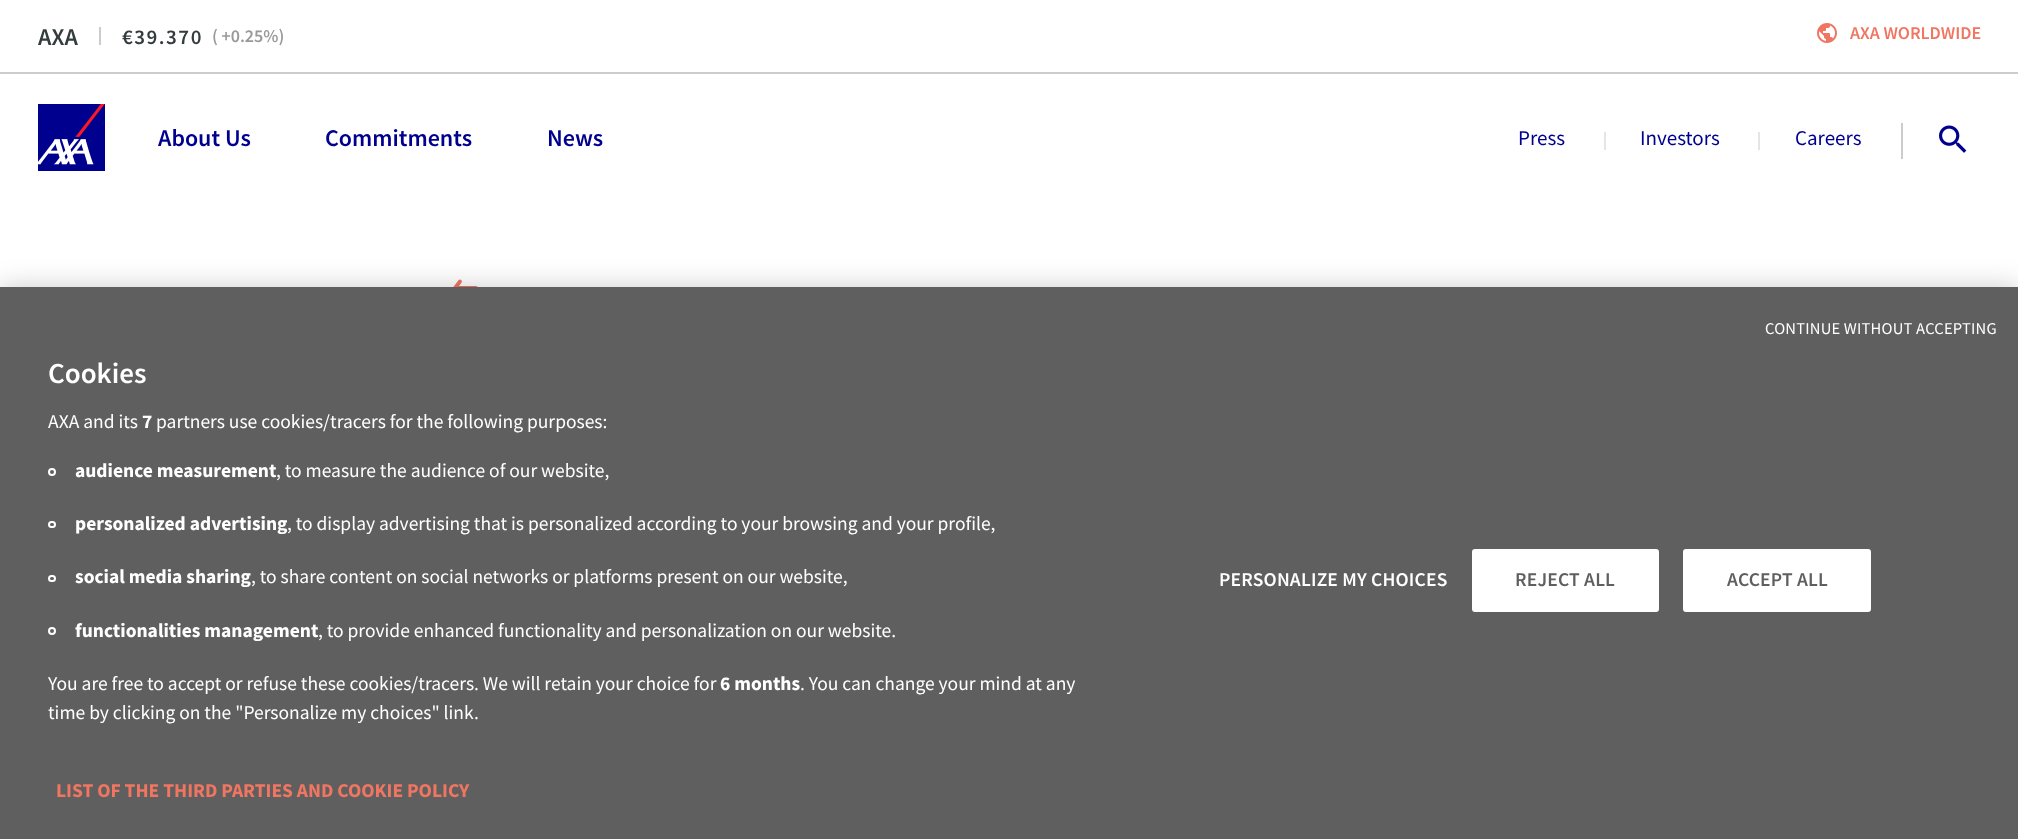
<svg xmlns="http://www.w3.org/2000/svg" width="2018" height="839">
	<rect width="100%" height="100%" fill="#FFFFFF" />
	<rect x="0" y="72" width="2018" height="2" fill="#CCCCCC" />
	<text x="38" y="45" font-family="Source Sans Pro" font-size="24" font-weight="600" fill="#343C3D">AXA</text>
	<rect x="99" y="27" width="2" height="18" fill="#CCCCCC" />
	<text x="122" y="44" font-family="Source Sans Pro" font-size="21" font-weight="600" letter-spacing="1.5" fill="#343C3D">€39.370</text>
	<text x="212" y="42" font-family="Source Sans Pro" font-size="18" font-weight="600" fill="#999999">( +0.25%)</text>
	<image x="1817" y="23" width="20" height="20" href="assets/img1.png" />
	<text x="1850" y="39" font-family="Source Sans Pro" font-size="18" font-weight="600" fill="#F07662">AXA WORLDWIDE</text>
	<image x="38" y="104" width="67" height="67" href="assets/img2.png" />
	<g font-family="Source Sans Pro" font-size="24" font-weight="600" fill="#00008F">
		<text x="158" y="146">About Us</text>
		<text x="325" y="146">Commitments</text>
		<text x="547" y="146">News</text>
	</g>
	<text x="1518" y="145" font-family="Source Sans Pro" font-size="21" fill="#00008F">Press</text>
	<rect x="1604" y="132" width="2" height="18" fill="#E5E5E5" />
	<text x="1640" y="145" font-family="Source Sans Pro" font-size="21" fill="#00008F">Investors</text>
	<rect x="1758" y="132" width="2" height="18" fill="#E5E5E5" />
	<text x="1795" y="145" font-family="Source Sans Pro" font-size="21" fill="#00008F">Careers</text>
	<rect x="1901" y="123" width="2" height="36" fill="#CCCCCC" />
	<image x="1939" y="125" width="28" height="28" href="assets/img3.png" />
	<path d="M476 288H456.5M460 281.5L455 288L460 294.5" fill="none" stroke="#F07662" stroke-width="3.8" stroke-linecap="round" />
	<rect x="0" y="287" width="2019" height="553" fill="#000000" fill-opacity="0.2" filter="blur(13.5px)" />
	<rect x="0" y="287" width="2018" height="552" fill="#5F5F5F" />
	<text x="1765" y="334" font-family="Source Sans Pro" font-size="16.5" letter-spacing="0.2" fill="#FFFFFF">CONTINUE WITHOUT ACCEPTING</text>
	<text x="48" y="383" font-family="Source Sans Pro" font-size="29" font-weight="600" fill="#FFFFFF">Cookies</text>
	<text x="48" y="428" font-family="Source Sans Pro" font-size="19.5" fill="#FFFFFF">AXA and its</text>
	<text x="142" y="428" font-family="Source Sans Pro" font-size="19.5" font-weight="700" fill="#FFFFFF">7</text>
	<text x="156" y="428" font-family="Source Sans Pro" font-size="19.5" fill="#FFFFFF">partners use cookies/tracers for the following purposes:</text>
	<circle cx="52" cy="472" r="3" fill="none" stroke="#FFFFFF" stroke-width="2" />
	<text x="75" y="477" font-family="Source Sans Pro" font-size="19.5" font-weight="700" fill="#FFFFFF">audience measurement</text>
	<text x="276" y="477" font-family="Source Sans Pro" font-size="19.5" fill="#FFFFFF">, to measure the audience of our website,</text>
	<rect x="49" y="522" width="6" height="5" rx="2.5" fill="none" stroke="#FFFFFF" stroke-width="2" />
	<text x="75" y="530" font-family="Source Sans Pro" font-size="19.5" font-weight="700" fill="#FFFFFF">personalized advertising</text>
	<text x="287" y="530" font-family="Source Sans Pro" font-size="19.5" fill="#FFFFFF">, to display advertising that is personalized according to your browsing and your profile,</text>
	<rect x="49" y="576" width="6" height="5" rx="2.5" fill="none" stroke="#FFFFFF" stroke-width="2" />
	<text x="75" y="583" font-family="Source Sans Pro" font-size="19.5" font-weight="700" fill="#FFFFFF">social media sharing</text>
	<text x="251" y="583" font-family="Source Sans Pro" font-size="19.5" fill="#FFFFFF">, to share content on social networks or platforms present on our website,</text>
	<circle cx="52" cy="631" r="3" fill="none" stroke="#FFFFFF" stroke-width="2" />
	<text x="75" y="637" font-family="Source Sans Pro" font-size="19.5" font-weight="700" fill="#FFFFFF">functionalities management</text>
	<g font-family="Source Sans Pro" font-size="19.5" fill="#FFFFFF">
		<text x="318" y="637">, to provide enhanced functionality and personalization on our website.</text>
		<text x="48" y="690">You are free to accept or refuse these cookies/tracers. We will retain your choice for</text>
	</g>
	<text x="720" y="690" font-family="Source Sans Pro" font-size="19.5" font-weight="700" fill="#FFFFFF">6 months</text>
	<g font-family="Source Sans Pro" font-size="19.5" fill="#FFFFFF">
		<text x="800" y="690">. You can change your mind at any</text>
		<text x="48" y="719">time by clicking on the "Personalize my choices" link.</text>
	</g>
	<text x="56" y="797" font-family="Source Sans Pro" font-size="19.5" font-weight="700" fill="#F07662">LIST OF THE THIRD PARTIES AND COOKIE POLICY</text>
	<text x="1219" y="586" font-family="Source Sans Pro" font-size="19.5" font-weight="600" letter-spacing="0.2" fill="#FFFFFF">PERSONALIZE MY CHOICES</text>
	<rect x="1473" y="550" width="185" height="61" rx="2" fill="#FFFFFF" stroke="#FFFFFF" stroke-width="2" />
	<text x="1515" y="586" font-family="Source Sans Pro" font-size="19.5" font-weight="600" letter-spacing="0.2" fill="#5F5F5F">REJECT ALL</text>
	<rect x="1684" y="550" width="186" height="61" rx="2" fill="#FFFFFF" stroke="#FFFFFF" stroke-width="2" />
	<text x="1727" y="586" font-family="Source Sans Pro" font-size="19.5" font-weight="600" letter-spacing="0.2" fill="#5F5F5F">ACCEPT ALL</text>
</svg>
